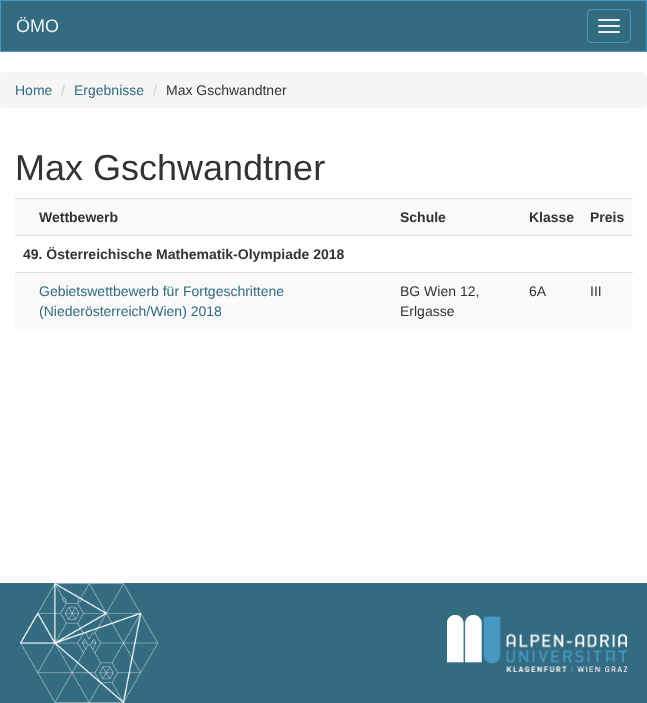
<svg xmlns="http://www.w3.org/2000/svg" width="647" height="703">
	<rect width="100%" height="100%" fill="#FFFFFF" />
	<rect x="0.5" y="0.5" width="646" height="51" fill="#336B81" stroke="#4699C2" />
	<text x="16" y="32" font-family="Liberation Sans" font-size="18" fill="#ECF0F1">ÖMO</text>
	<rect x="587.5" y="9.5" width="43" height="33" rx="3.5" fill="none" stroke="#4699C2" />
	<rect x="598" y="19" width="22" height="2" rx="1" fill="#ECF0F1" />
	<rect x="598" y="25" width="22" height="2" rx="1" fill="#ECF0F1" />
	<rect x="598" y="31" width="22" height="2" rx="1" fill="#ECF0F1" />
	<rect x="0" y="72" width="647" height="36" rx="4" fill="#F5F5F5" />
	<text x="15" y="95" font-family="Liberation Sans" font-size="14" fill="#336B81">Home</text>
	<text x="61" y="95" font-family="Liberation Sans" font-size="14" fill="#CCCCCC">/</text>
	<text x="74" y="95" font-family="Liberation Sans" font-size="14" fill="#336B81">Ergebnisse</text>
	<text x="153" y="95" font-family="Liberation Sans" font-size="14" fill="#CCCCCC">/</text>
	<text x="166" y="95" font-family="Liberation Sans" font-size="14" fill="#333333">Max Gschwandtner</text>
	<text x="15" y="180" font-family="Liberation Sans" font-size="36" fill="#333333">Max Gschwandtner</text>
	<rect x="15" y="199" width="617" height="36" fill="#F9F9F9" />
	<g font-family="Liberation Sans" font-size="14" font-weight="700" fill="#333333">
		<text x="39" y="222">Wettbewerb</text>
		<text x="400" y="222">Schule</text>
		<text x="529" y="222">Klasse</text>
	</g>
	<rect x="15" y="198" width="618" height="1" fill="#DDDDDD" />
	<text x="590" y="222" font-family="Liberation Sans" font-size="14" font-weight="700" fill="#333333">Preis</text>
	<rect x="15" y="235" width="618" height="1" fill="#DDDDDD" />
	<text x="23" y="259" font-family="Liberation Sans" font-size="14" font-weight="700" fill="#333333">49. Österreichische Mathematik-Olympiade 2018</text>
	<rect x="15" y="273" width="617" height="56" fill="#F9F9F9" />
	<g font-family="Liberation Sans" font-size="14" fill="#336B81">
		<text x="39" y="296">Gebietswettbewerb für Fortgeschrittene</text>
		<text x="39" y="316">(Niederösterreich/Wien) 2018</text>
	</g>
	<g font-family="Liberation Sans" font-size="14" fill="#333333">
		<text x="400" y="296">BG Wien 12,</text>
		<text x="400" y="316">Erlgasse</text>
		<text x="529" y="296">6A</text>
	</g>
	<rect x="15" y="272" width="618" height="1" fill="#DDDDDD" />
	<text x="590" y="296" font-family="Liberation Sans" font-size="14" fill="#333333">III</text>
	<rect x="0" y="583" width="647" height="120" fill="#336B81" />
	<image x="20" y="583" width="138" height="120" href="assets/img1.png" />
	<image x="447" y="615" width="180" height="57" href="assets/img2.png" />
</svg>
